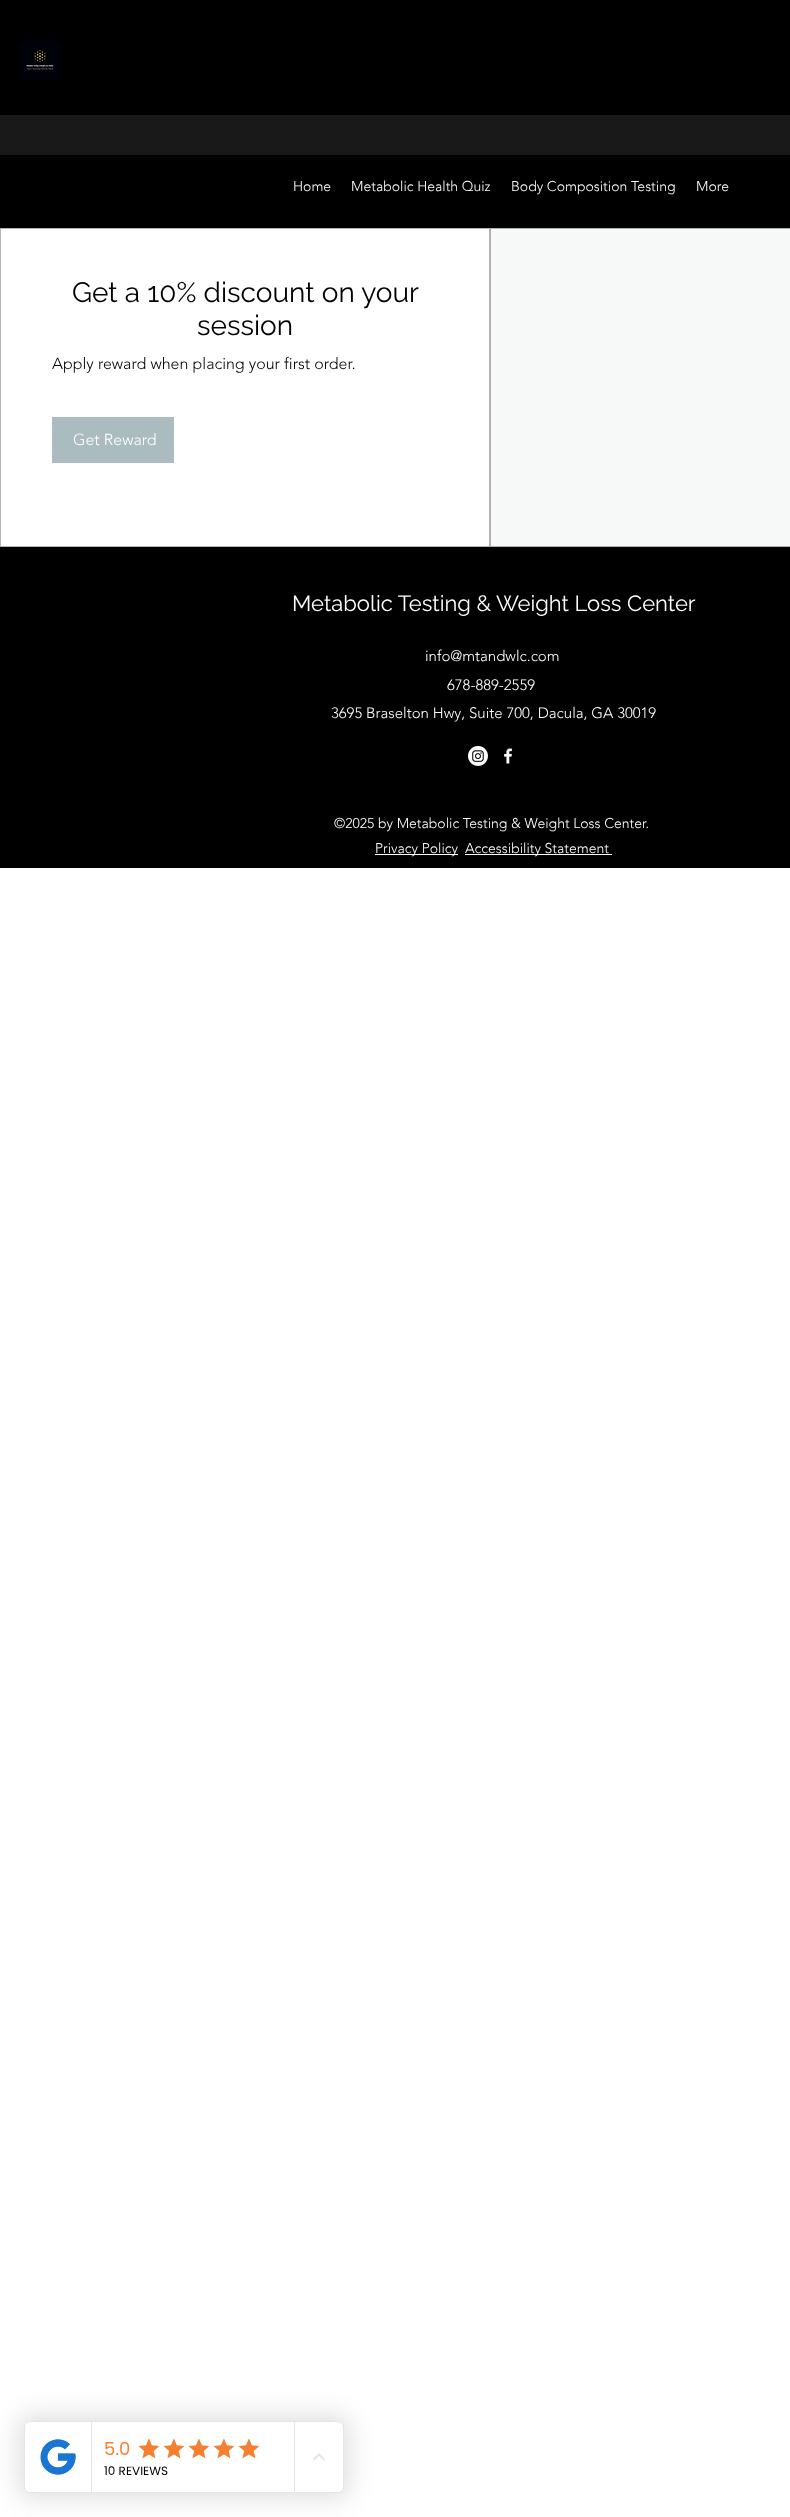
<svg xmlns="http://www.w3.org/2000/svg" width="790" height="2517">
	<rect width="100%" height="100%" fill="#FFFFFF" />
	<rect x="0" y="0" width="790" height="228" fill="#000000" />
	<image x="20" y="40" width="40" height="40" href="assets/img1.png" />
	<rect x="0" y="115" width="790" height="40" fill="#191919" />
	<g font-family="'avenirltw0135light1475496'" font-size="14" font-weight="300" fill="#FFFFFF">
		<text x="293" y="191">Home</text>
		<text x="351" y="191">Metabolic Health Quiz</text>
		<text x="511" y="191">Body Composition Testing</text>
		<text x="696" y="191">More</text>
	</g>
	<rect x="0.5" y="228.5" width="489" height="318" fill="none" stroke="#B3B3B3" />
	<g font-family="Raleway" font-size="28" fill="#000000">
		<text x="72" y="302">Get a 10% discount on your</text>
		<text x="197" y="335">session</text>
	</g>
	<text x="52" y="369" font-family="'avenirltw0135light1475496'" font-size="16" font-weight="300" fill="#000000">Apply reward when placing your first order.</text>
	<rect x="52" y="417" width="122" height="46" fill="#AABCBF" />
	<text x="73" y="445" font-family="'avenirltw0135light1475496'" font-size="16" font-weight="300" fill="#FFFFFF">Get Reward</text>
	<rect x="490.5" y="228.5" width="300" height="318" fill="#F7F9F9" stroke="#ADAEAE" />
	<rect x="0" y="547" width="790" height="321" fill="#000000" />
	<text x="292" y="611" font-family="Raleway" font-size="22" fill="#FFFFFF">Metabolic Testing &amp; Weight Loss Center</text>
	<g font-family="'avenirltw0135light1475496'" font-size="15" font-weight="300" fill="#FFFFFF">
		<text x="425" y="661">info@mtandwlc.com</text>
		<text x="447" y="690">678-889-2559</text>
		<text x="331" y="718">3695 Braselton Hwy, Suite 700, Dacula, GA 30019</text>
	</g>
	<image x="468" y="746" width="20" height="20" href="assets/img2.png" />
	<image x="504" y="748" width="9" height="16" href="assets/img3.png" />
	<text x="334" y="828" font-family="'avenirltw0135light1475496'" font-size="14" font-weight="300" fill="#FFFFFF">©2025 by Metabolic Testing &amp; Weight Loss Center.</text>
	<rect x="375" y="854" width="83" height="1" fill="#FFFFFF" />
	<text x="375" y="853" font-family="'avenirltw0135light1475496'" font-size="14" font-weight="300" fill="#FFFFFF">Privacy Policy</text>
	<rect x="465" y="854" width="147" height="1" fill="#FFFFFF" />
	<text x="465" y="853" font-family="'avenirltw0135light1475496'" font-size="14" font-weight="300" fill="#FFFFFF">Accessibility Statement</text>
	<rect x="18" y="2415" width="332" height="84" rx="12" fill="#000000" fill-opacity="0.12" filter="blur(12px)" />
	<rect x="24.5" y="2421.5" width="319" height="71" rx="5.5" fill="#FFFFFF" stroke="#E5E5E5" />
	<path d="M31 2422H92V2492H31C27.5 2492 25 2489.5 25 2486V2428C25 2424.5 27.5 2422 31 2422Z" fill="#FFFFFF" />
	<rect x="91" y="2422" width="1" height="70" fill="#E5E5E5" />
	<image x="40" y="2439" width="36" height="36" href="assets/img4.png" />
	<rect x="294" y="2422" width="1" height="70" fill="#E5E5E5" />
	<text x="104" y="2455" font-family="Poppins" font-size="18" fill="#F7802F">5.0</text>
	<image x="138" y="2439" width="21" height="19" href="assets/img6.png" />
	<image x="138" y="2438" width="22" height="21" href="assets/img5.png" />
	<image x="163" y="2439" width="21" height="19" href="assets/img6.png" />
	<image x="163" y="2438" width="22" height="21" href="assets/img5.png" />
	<image x="188" y="2439" width="21" height="19" href="assets/img6.png" />
	<image x="188" y="2438" width="22" height="21" href="assets/img5.png" />
	<image x="213" y="2439" width="21" height="19" href="assets/img6.png" />
	<image x="213" y="2438" width="22" height="21" href="assets/img5.png" />
	<image x="238" y="2439" width="21" height="19" href="assets/img6.png" />
	<image x="238" y="2438" width="22" height="21" href="assets/img5.png" />
	<text x="104" y="2475" font-family="Poppins" font-size="12" fill="#000000">10 REVIEWS</text>
	<image x="313" y="2453" width="12" height="8" href="assets/img7.png" />
</svg>
